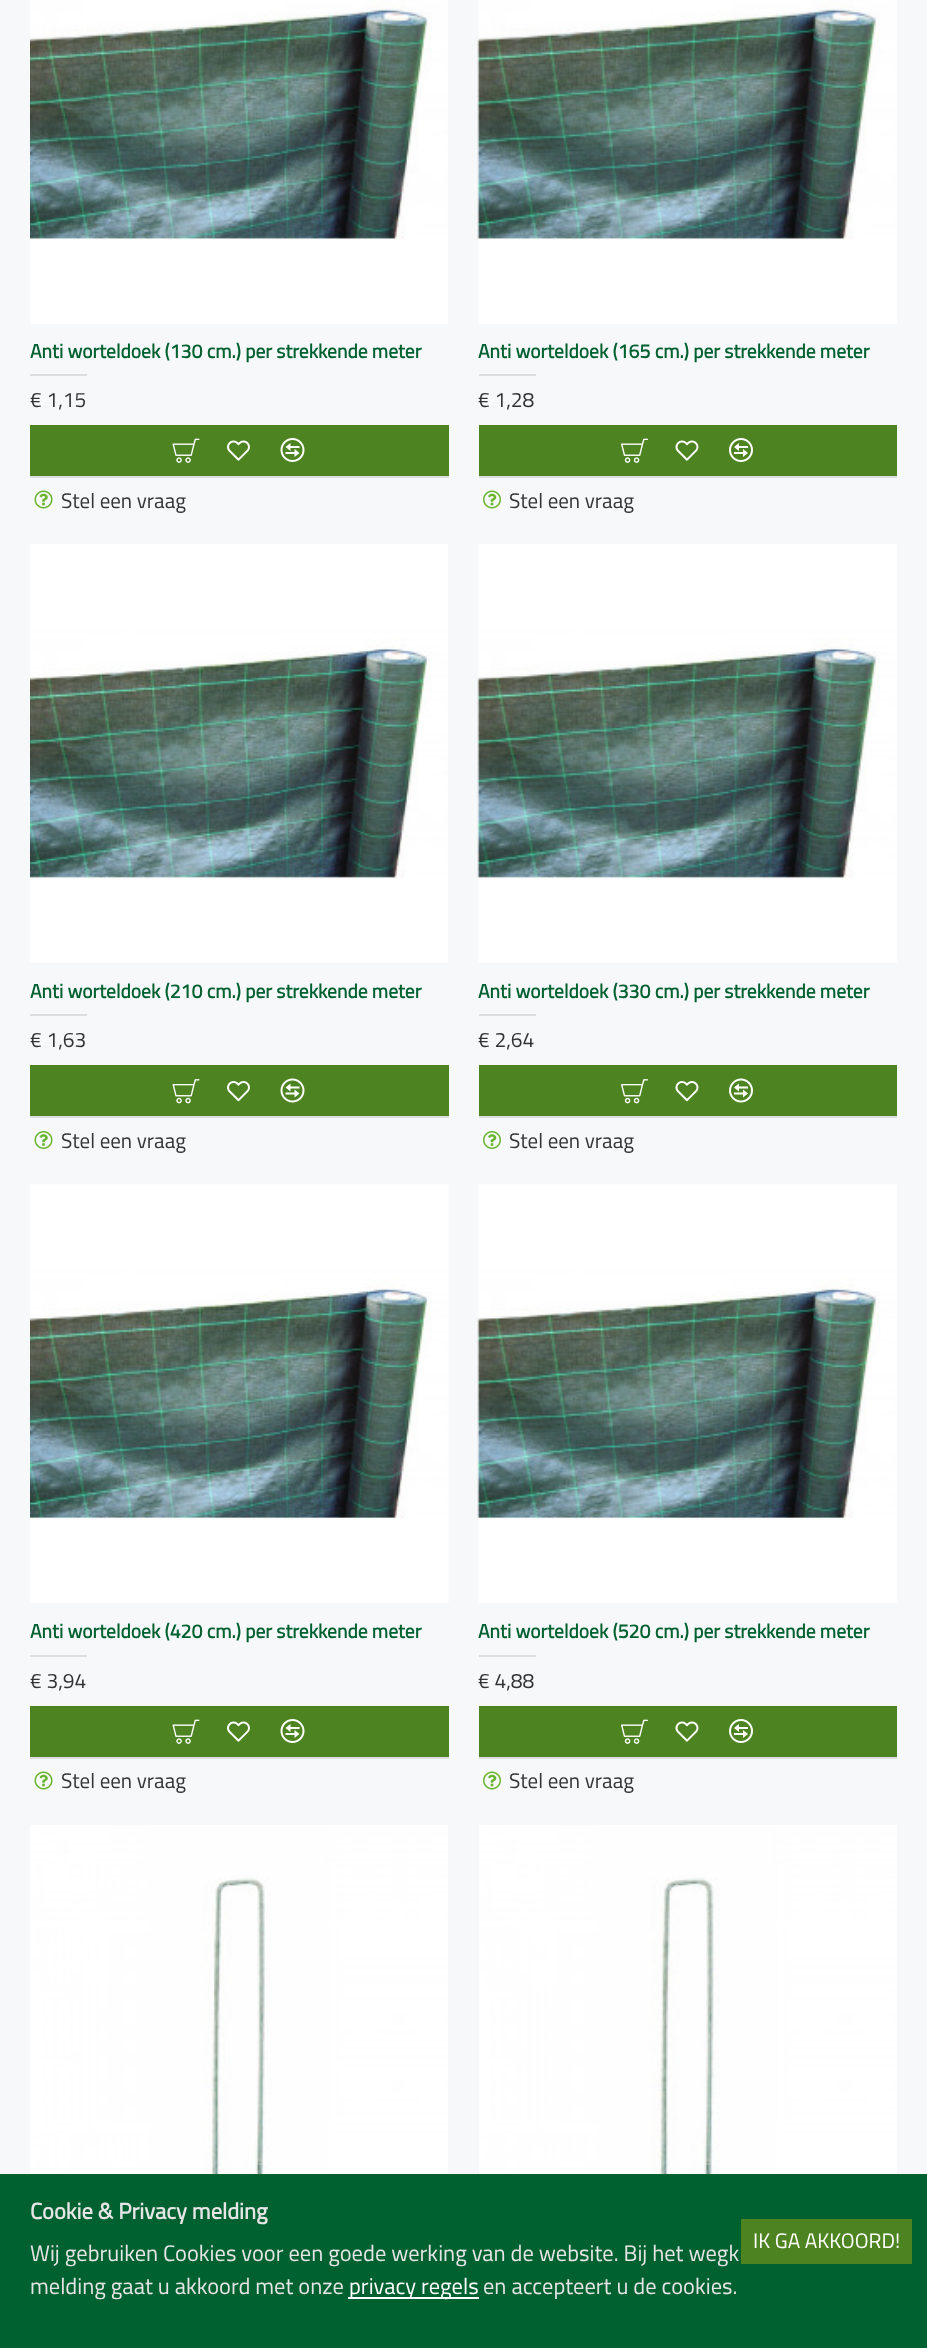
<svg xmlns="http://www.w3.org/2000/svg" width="927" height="2348">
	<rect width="100%" height="100%" fill="#F7F8FA" />
	<image x="30" y="0" width="418" height="324" href="assets/img1.png" />
	<text x="30" y="358" font-family="Titillium Web" font-size="19.5" font-weight="700" fill="#006130">Anti worteldoek (130 cm.) per strekkende meter</text>
	<rect x="30" y="374" width="57" height="2" fill="#DDDDDD" />
	<text x="30" y="407" font-family="Titillium Web" font-size="21" fill="#333333">€ 1,15</text>
	<rect x="30" y="425" width="419" height="51" fill="#4D8421" />
	<image x="172" y="438" width="28" height="25" href="assets/img2.png" />
	<image x="227" y="440" width="23" height="21" href="assets/img3.png" />
	<image x="280" y="438" width="25" height="24" href="assets/img4.png" />
	<rect x="30" y="476" width="419" height="2" fill="#DDDDDD" />
	<image x="34" y="490" width="19" height="19" href="assets/img5.png" />
	<text x="61" y="508" font-family="Titillium Web" font-size="21" fill="#333333">Stel een vraag</text>
	<image x="477" y="0" width="420" height="324" href="assets/img6.png" />
	<text x="478" y="358" font-family="Titillium Web" font-size="19.5" font-weight="700" fill="#006130">Anti worteldoek (165 cm.) per strekkende meter</text>
	<rect x="479" y="374" width="57" height="2" fill="#DDDDDD" />
	<text x="478" y="407" font-family="Titillium Web" font-size="21" fill="#333333">€ 1,28</text>
	<rect x="479" y="425" width="418" height="51" fill="#4D8421" />
	<image x="621" y="438" width="27" height="25" href="assets/img7.png" />
	<image x="675" y="440" width="24" height="21" href="assets/img8.png" />
	<image x="729" y="438" width="24" height="24" href="assets/img9.png" />
	<rect x="479" y="476" width="418" height="2" fill="#DDDDDD" />
	<image x="483" y="490" width="18" height="19" href="assets/img10.png" />
	<text x="509" y="508" font-family="Titillium Web" font-size="21" fill="#333333">Stel een vraag</text>
	<image x="30" y="544" width="418" height="419" href="assets/img11.png" />
	<text x="30" y="998" font-family="Titillium Web" font-size="19.5" font-weight="700" fill="#006130">Anti worteldoek (210 cm.) per strekkende meter</text>
	<rect x="30" y="1014" width="57" height="2" fill="#DDDDDD" />
	<text x="30" y="1047" font-family="Titillium Web" font-size="21" fill="#333333">€ 1,63</text>
	<rect x="30" y="1065" width="419" height="51" fill="#4D8421" />
	<image x="172" y="1079" width="28" height="25" href="assets/img12.png" />
	<image x="227" y="1081" width="23" height="21" href="assets/img13.png" />
	<image x="280" y="1078" width="25" height="25" href="assets/img14.png" />
	<rect x="30" y="1116" width="419" height="2" fill="#DDDDDD" />
	<image x="34" y="1131" width="19" height="18" href="assets/img15.png" />
	<text x="61" y="1148" font-family="Titillium Web" font-size="21" fill="#333333">Stel een vraag</text>
	<image x="477" y="544" width="420" height="419" href="assets/img16.png" />
	<text x="478" y="998" font-family="Titillium Web" font-size="19.5" font-weight="700" fill="#006130">Anti worteldoek (330 cm.) per strekkende meter</text>
	<rect x="479" y="1014" width="57" height="2" fill="#DDDDDD" />
	<text x="478" y="1047" font-family="Titillium Web" font-size="21" fill="#333333">€ 2,64</text>
	<rect x="479" y="1065" width="418" height="51" fill="#4D8421" />
	<image x="621" y="1079" width="27" height="25" href="assets/img17.png" />
	<image x="675" y="1081" width="24" height="21" href="assets/img18.png" />
	<image x="729" y="1078" width="24" height="25" href="assets/img19.png" />
	<rect x="479" y="1116" width="418" height="2" fill="#DDDDDD" />
	<image x="483" y="1131" width="18" height="18" href="assets/img20.png" />
	<text x="509" y="1148" font-family="Titillium Web" font-size="21" fill="#333333">Stel een vraag</text>
	<image x="30" y="1184" width="419" height="419" href="assets/img21.png" />
	<text x="30" y="1638" font-family="Titillium Web" font-size="19.5" font-weight="700" fill="#006130">Anti worteldoek (420 cm.) per strekkende meter</text>
	<rect x="30" y="1655" width="57" height="2" fill="#DDDDDD" />
	<text x="30" y="1688" font-family="Titillium Web" font-size="21" fill="#333333">€ 3,94</text>
	<rect x="30" y="1706" width="419" height="51" fill="#4D8421" />
	<image x="172" y="1719" width="28" height="25" href="assets/img2.png" />
	<image x="227" y="1721" width="23" height="21" href="assets/img3.png" />
	<image x="280" y="1719" width="25" height="24" href="assets/img4.png" />
	<rect x="30" y="1757" width="419" height="2" fill="#DDDDDD" />
	<image x="34" y="1771" width="19" height="19" href="assets/img5.png" />
	<text x="61" y="1788" font-family="Titillium Web" font-size="21" fill="#333333">Stel een vraag</text>
	<image x="477" y="1184" width="420" height="419" href="assets/img22.png" />
	<text x="478" y="1638" font-family="Titillium Web" font-size="19.5" font-weight="700" fill="#006130">Anti worteldoek (520 cm.) per strekkende meter</text>
	<rect x="479" y="1655" width="57" height="2" fill="#DDDDDD" />
	<text x="478" y="1688" font-family="Titillium Web" font-size="21" fill="#333333">€ 4,88</text>
	<rect x="479" y="1706" width="418" height="51" fill="#4D8421" />
	<image x="621" y="1719" width="27" height="25" href="assets/img7.png" />
	<image x="675" y="1721" width="24" height="21" href="assets/img8.png" />
	<image x="729" y="1719" width="24" height="24" href="assets/img9.png" />
	<rect x="479" y="1757" width="418" height="2" fill="#DDDDDD" />
	<image x="483" y="1771" width="18" height="19" href="assets/img10.png" />
	<text x="509" y="1788" font-family="Titillium Web" font-size="21" fill="#333333">Stel een vraag</text>
	<image x="30" y="1825" width="418" height="349" href="assets/img23.png" />
	<image x="479" y="1825" width="418" height="349" href="assets/img24.png" />
	<rect x="0" y="2174" width="927" height="174" fill="#006130" />
	<text x="30" y="2219" font-family="Titillium Web" font-size="22.5" font-weight="700" fill="#E6E6E6">Cookie &amp; Privacy melding</text>
	<g font-family="Titillium Web" font-size="22.5" fill="#E6E6E6">
		<text x="30" y="2261">Wij gebruiken Cookies voor een goede werking van de website. Bij het wegk</text>
		<text x="30" y="2294">melding gaat u akkoord met onze</text>
	</g>
	<rect x="348" y="2297" width="131" height="2" fill="#FFFFFF" />
	<text x="349" y="2294" font-family="Titillium Web" font-size="22.5" fill="#FFFFFF">privacy regels</text>
	<text x="483" y="2294" font-family="Titillium Web" font-size="22.5" fill="#E6E6E6">en accepteert u de cookies.</text>
	<rect x="741" y="2219" width="171" height="45" fill="#4D8421" />
	<text x="753" y="2248" font-family="Titillium Web" font-size="21" fill="#FFFFFF">IK GA AKKOORD!</text>
</svg>
